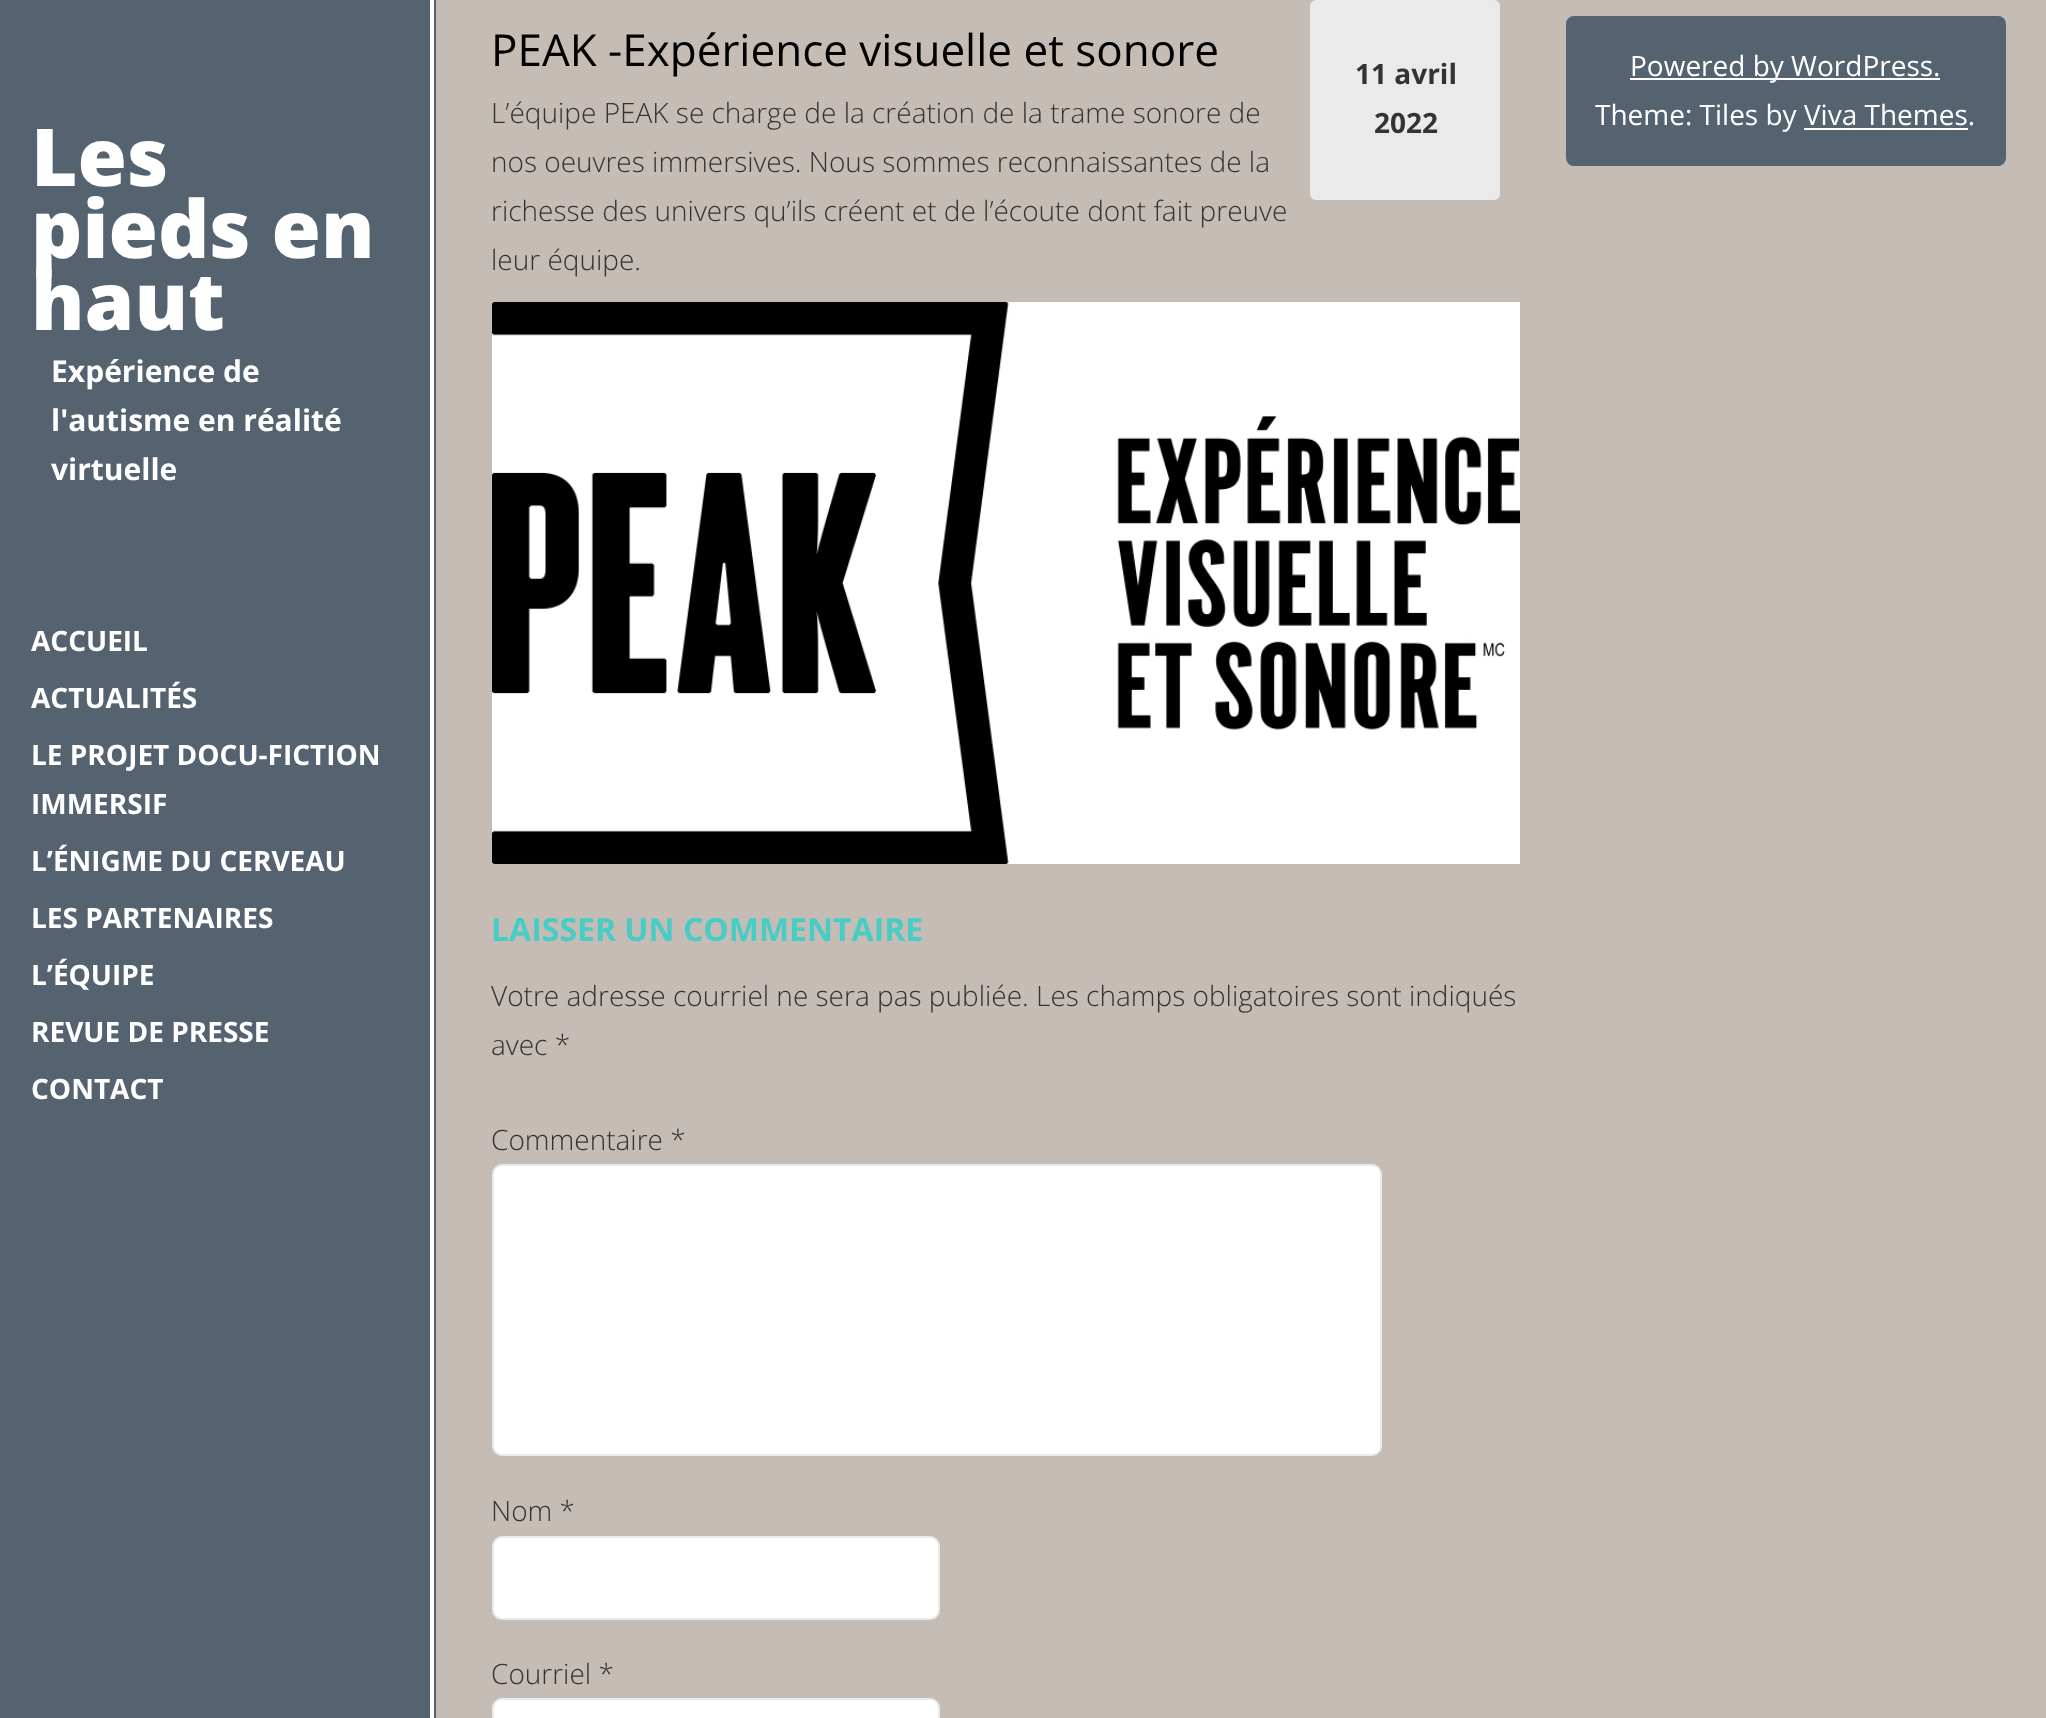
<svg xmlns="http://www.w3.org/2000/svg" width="2046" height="1718">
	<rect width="100%" height="100%" fill="#C6BCB6" />
	<rect x="434" y="0" width="2" height="1718" fill="#556370" />
	<rect x="430" y="0" width="4" height="1718" fill="#FFFFFF" />
	<rect x="0" y="0" width="430" height="1718" fill="#556370" />
	<g font-family="Open Sans" font-size="80" font-weight="800" fill="#FFFFFF">
		<text x="31" y="186">Les</text>
		<text x="31" y="258">pieds en</text>
		<text x="31" y="330">haut</text>
	</g>
	<g font-family="Open Sans" font-size="30" font-weight="700" fill="#FFFFFF">
		<text x="51" y="382">Expérience de</text>
		<text x="51" y="431">l'autisme en réalité</text>
		<text x="51" y="480">virtuelle</text>
	</g>
	<g font-family="Open Sans" font-size="28" font-weight="700" fill="#FFFFFF">
		<text x="31" y="651">ACCUEIL</text>
		<text x="31" y="708">ACTUALITÉS</text>
		<text x="31" y="765">LE PROJET DOCU-FICTION</text>
		<text x="31" y="814">IMMERSIF</text>
		<text x="31" y="871">L’ÉNIGME DU CERVEAU</text>
		<text x="31" y="928">LES PARTENAIRES</text>
		<text x="31" y="985">L’ÉQUIPE</text>
		<text x="31" y="1042">REVUE DE PRESSE</text>
		<text x="31" y="1099">CONTACT</text>
	</g>
	<text x="491" y="66" font-family="Open Sans" font-size="44" fill="#000000">PEAK -Expérience visuelle et sonore</text>
	<g font-family="Open Sans" font-size="28" font-weight="300" fill="#333333">
		<text x="491" y="123">L’équipe PEAK se charge de la création de la trame sonore de</text>
		<text x="491" y="172">nos oeuvres immersives. Nous sommes reconnaissantes de la</text>
		<text x="491" y="221">richesse des univers qu’ils créent et de l’écoute dont fait preuve</text>
		<text x="491" y="270">leur équipe.</text>
	</g>
	<image x="492" y="302" width="1028" height="562" href="assets/img1.png" />
	<text x="491" y="941" font-family="Open Sans" font-size="32" font-weight="700" fill="#47CDC4">LAISSER UN COMMENTAIRE</text>
	<g font-family="Open Sans" font-size="28" font-weight="300" fill="#333333">
		<text x="491" y="1006">Votre adresse courriel ne sera pas publiée. Les champs obligatoires sont indiqués</text>
		<text x="491" y="1055">avec *</text>
		<text x="491" y="1150">Commentaire *</text>
	</g>
	<rect x="493" y="1165" width="888" height="290" rx="9" fill="#FFFFFF" stroke="#EAEAEA" stroke-width="2" />
	<text x="491" y="1521" font-family="Open Sans" font-size="28" font-weight="300" fill="#333333">Nom *</text>
	<rect x="493" y="1537" width="446" height="82" rx="9" fill="#FFFFFF" stroke="#EAEAEA" stroke-width="2" />
	<text x="491" y="1684" font-family="Open Sans" font-size="28" font-weight="300" fill="#333333">Courriel *</text>
	<rect x="493" y="1699" width="446" height="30" rx="9" fill="#FFFFFF" stroke="#EAEAEA" stroke-width="2" />
	<rect x="1310" y="0" width="190" height="200" rx="6" fill="#EAEAEA" />
	<g font-family="Open Sans" font-size="28" font-weight="700" fill="#333333">
		<text x="1355" y="84">11 avril</text>
		<text x="1374" y="133">2022</text>
	</g>
	<rect x="1566" y="16" width="440" height="150" rx="8" fill="#556370" />
	<rect x="1630" y="78" width="310" height="2" fill="#FFFFFF" />
	<g font-family="Open Sans" font-size="28" fill="#FFFFFF">
		<text x="1630" y="76">Powered by WordPress.</text>
		<text x="1595" y="125">Theme: Tiles by Viva Themes.</text>
	</g>
	<rect x="1804" y="128" width="164" height="2" fill="#FFFFFF" />
</svg>
